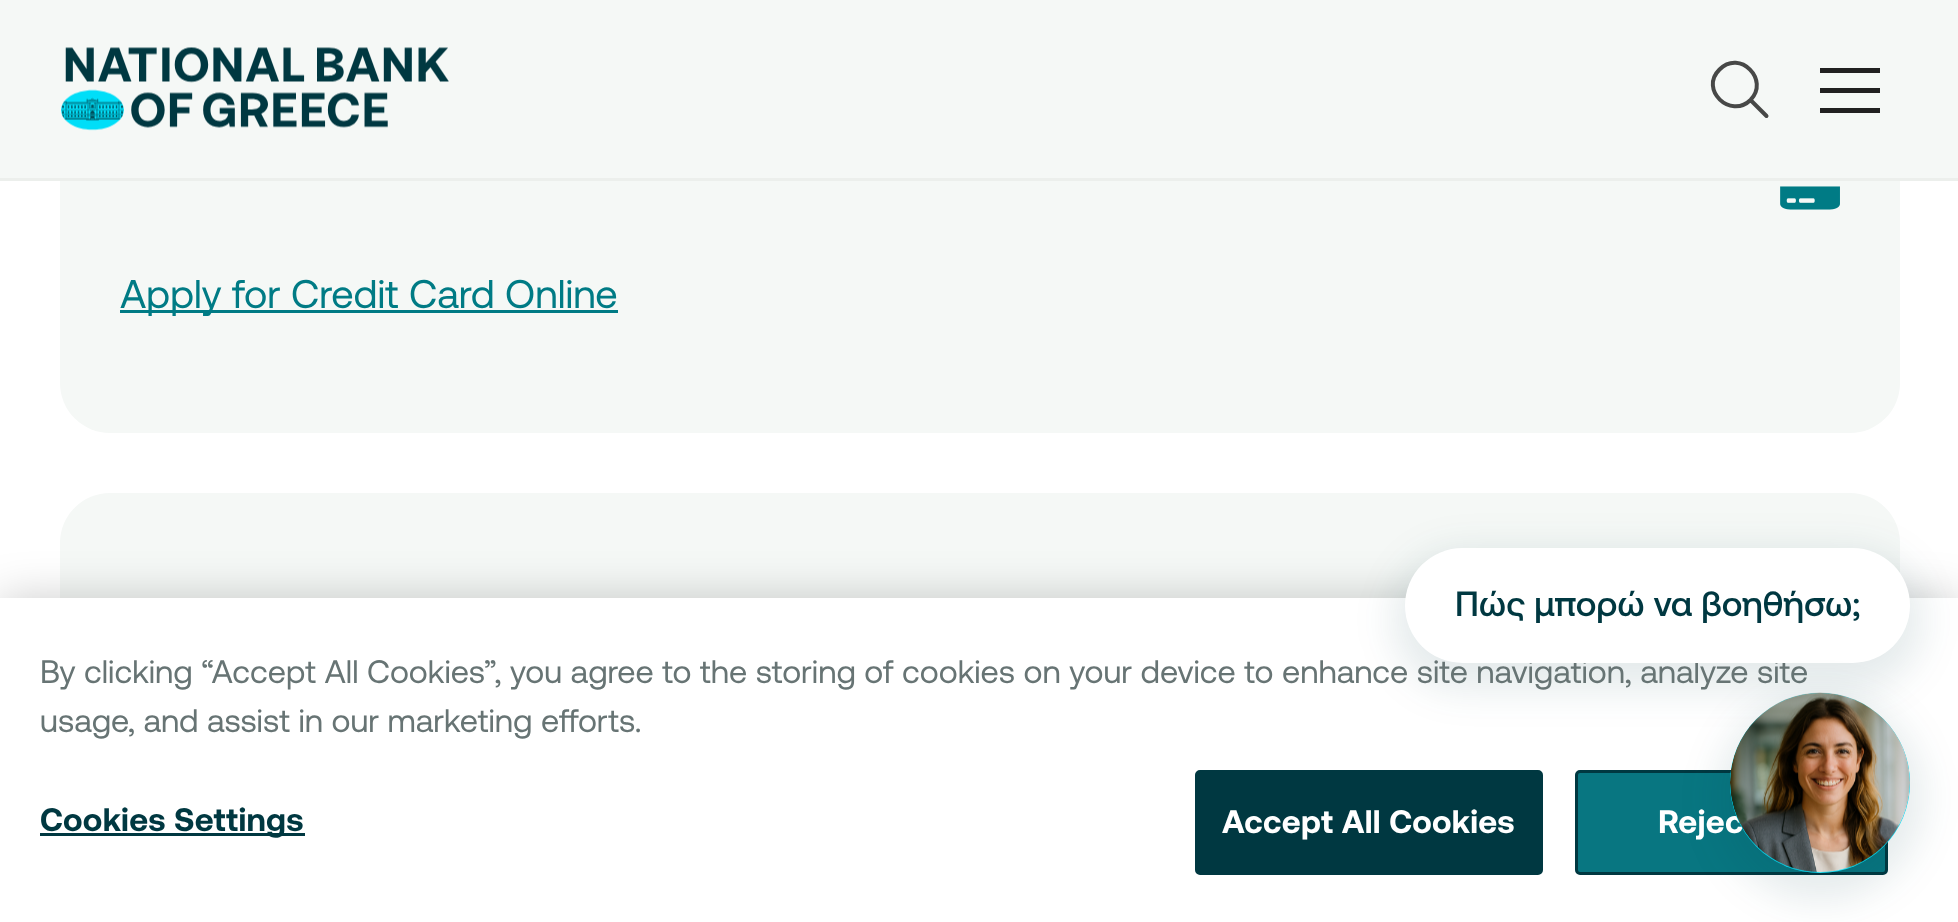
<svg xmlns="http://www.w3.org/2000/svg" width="1958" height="922">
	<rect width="100%" height="100%" fill="#FFFFFF" />
	<rect x="60" y="55" width="1840" height="378" rx="50" fill="#F5F8F6" />
	<rect x="0" y="0" width="1958" height="178" fill="#F5F8F6" />
	<rect x="0" y="178" width="1958" height="3" fill="#ECEFEC" />
	<image x="61" y="47" width="388" height="84" href="assets/img1.png" />
	<path d="M1766.5 116L1750.5 100M1750.5 100C1770 80 1740 49 1719.5 69.5C1699 89.5 1730.5 119.5 1750.5 100Z" fill="none" stroke="#474847" stroke-width="4" stroke-linecap="round" stroke-linejoin="round" />
	<rect x="1820" y="88" width="60" height="5" fill="#212121" />
	<rect x="1820" y="68" width="60" height="5" fill="#212121" />
	<rect x="1820" y="108" width="60" height="5" fill="#212121" />
	<image x="1780" y="186" width="60" height="24" href="assets/img2.png" />
	<rect x="120" y="310" width="498" height="3" fill="#007B85" />
	<text x="120" y="308" font-family="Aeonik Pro" font-size="40" fill="#007B85">Apply for Credit Card Online</text>
	<rect x="60" y="493" width="1840" height="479" rx="50" fill="#F5F8F6" />
	<rect x="0" y="598" width="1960" height="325" fill="#000000" fill-opacity="0.2" filter="blur(22.5px)" />
	<rect x="0" y="598" width="1958" height="324" fill="#FFFFFF" />
	<rect x="1393" y="550" width="530" height="140" rx="70" fill="#003841" fill-opacity="0.1" filter="blur(19px)" />
	<text x="40" y="683" font-family="Aeonik Pro" font-size="32.52" fill="#677474">By clicking “Accept All Cookies”, you agree to the storing of cookies on your device to enhance site navigation, analyze site</text>
	<rect x="1405" y="548" width="505" height="115" rx="57.5" fill="#FFFFFF" />
	<text x="1455" y="616" font-family="Aeonik Pro" font-size="35" font-weight="500" fill="#003841">Πώς μπορώ να βοηθήσω;</text>
	<rect x="1576.5" y="771.5" width="310" height="102" rx="3.5" fill="#087681" stroke="#003841" stroke-width="3" />
	<rect x="1718" y="695" width="205" height="205" rx="102.5" fill="#003841" fill-opacity="0.1" filter="blur(19px)" />
	<text x="1658" y="833" font-family="Aeonik Pro" font-size="32.52" font-weight="700" letter-spacing="0.3" fill="#FFFFFF">Rejec</text>
	<circle cx="1820" cy="783" r="90" fill="#00DEF8" />
	<image x="1730" y="692" width="180" height="181" href="assets/img3.png" />
	<text x="40" y="732" font-family="Aeonik Pro" font-size="32.52" fill="#677474">usage, and assist in our marketing efforts.</text>
	<rect x="40" y="833" width="265" height="3" fill="#003841" />
	<text x="40" y="831" font-family="Aeonik Pro" font-size="32.52" font-weight="700" letter-spacing="0.3" fill="#003841">Cookies Settings</text>
	<rect x="1196.5" y="771.5" width="345" height="102" rx="3.5" fill="#003841" stroke="#003841" stroke-width="3" />
	<text x="1222" y="833" font-family="Aeonik Pro" font-size="32.52" font-weight="700" letter-spacing="0.3" fill="#FFFFFF">Accept All Cookies</text>
</svg>
